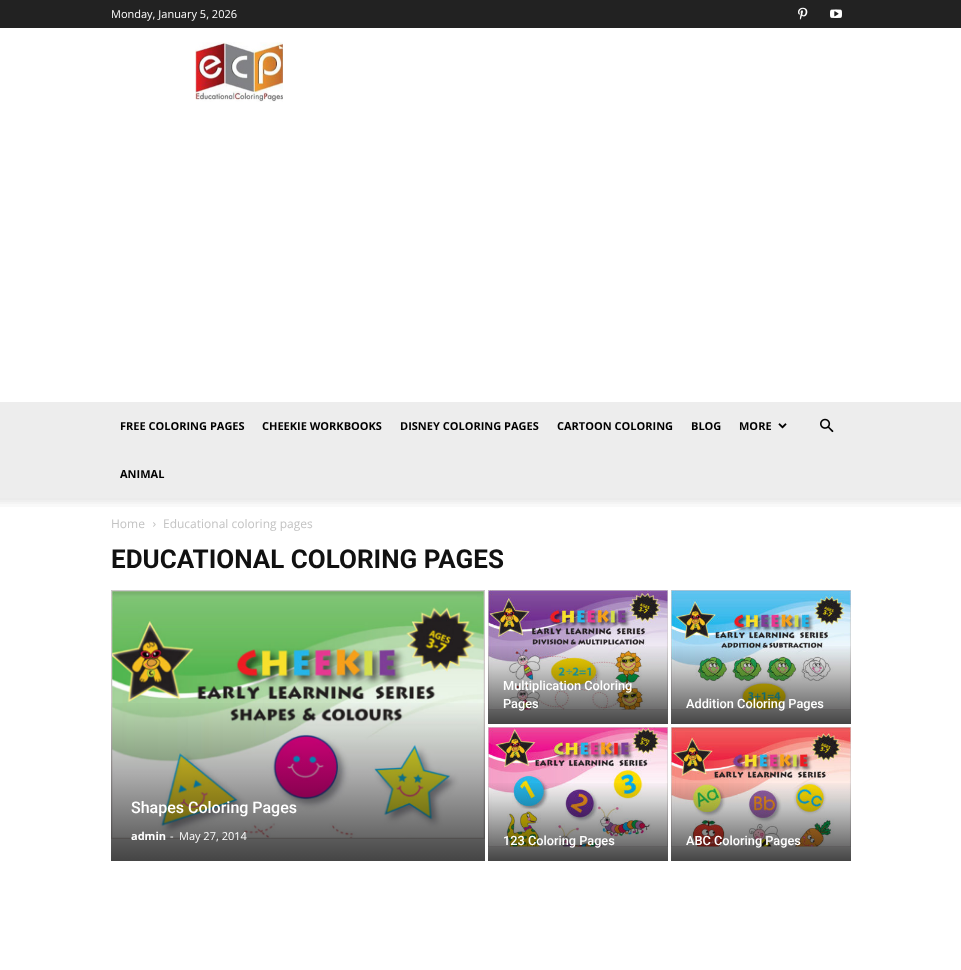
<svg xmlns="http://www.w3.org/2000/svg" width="961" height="970">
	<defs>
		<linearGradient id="g1" gradientUnits="userSpaceOnUse" x1="298" y1="590" x2="298" y2="861"><stop offset="0.4" stop-color="#000000" stop-opacity="0" /><stop offset="1" stop-color="#000000" stop-opacity="0.7" /></linearGradient>
		<linearGradient id="g2" gradientUnits="userSpaceOnUse" x1="578" y1="590" x2="578" y2="724"><stop offset="0.4" stop-color="#000000" stop-opacity="0" /><stop offset="1" stop-color="#000000" stop-opacity="0.7" /></linearGradient>
		<linearGradient id="g3" gradientUnits="userSpaceOnUse" x1="761" y1="590" x2="761" y2="724"><stop offset="0.4" stop-color="#000000" stop-opacity="0" /><stop offset="1" stop-color="#000000" stop-opacity="0.7" /></linearGradient>
		<linearGradient id="g4" gradientUnits="userSpaceOnUse" x1="578" y1="727" x2="578" y2="861"><stop offset="0.4" stop-color="#000000" stop-opacity="0" /><stop offset="1" stop-color="#000000" stop-opacity="0.7" /></linearGradient>
		<linearGradient id="g5" gradientUnits="userSpaceOnUse" x1="761" y1="727" x2="761" y2="861"><stop offset="0.4" stop-color="#000000" stop-opacity="0" /><stop offset="1" stop-color="#000000" stop-opacity="0.7" /></linearGradient>
	</defs>
	<rect width="100%" height="100%" fill="#FFFFFF" />
	<rect x="0" y="0" width="961" height="28" fill="#222222" />
	<text x="111" y="18" font-family="Open Sans" font-size="11" fill="#FFFFFF">Monday, January 5, 2026</text>
	<image x="798" y="7" width="10" height="13" href="assets/img1.png" />
	<image x="830" y="9" width="12" height="9" href="assets/img2.png" />
	<image x="195" y="42" width="88" height="60" href="assets/img3.png" />
	<rect x="0" y="402" width="961" height="96" fill="#EDEDED" />
	<g font-family="Open Sans" font-size="11" font-weight="700" fill="#000000">
		<text x="120" y="430">FREE COLORING PAGES</text>
		<text x="262" y="430">CHEEKIE WORKBOOKS</text>
		<text x="400" y="430">DISNEY COLORING PAGES</text>
		<text x="557" y="430">CARTOON COLORING</text>
		<text x="691" y="430">BLOG</text>
		<text x="739" y="430">MORE</text>
	</g>
	<image x="778" y="423" width="9" height="6" href="assets/img4.png" />
	<text x="120" y="478" font-family="Open Sans" font-size="11" font-weight="700" fill="#000000">ANIMAL</text>
	<image x="820" y="418" width="14" height="15" href="assets/img5.png" />
	<image x="0" y="498" width="961" height="9" href="assets/img6.png" />
	<text x="111" y="528" font-family="Open Sans" font-size="12" fill="#C3C3C3">Home</text>
	<image x="153" y="522" width="3" height="5" href="assets/img7.png" />
	<text x="163" y="528" font-family="Open Sans" font-size="12" fill="#C3C3C3">Educational coloring pages</text>
	<text x="111" y="568" font-family="Roboto" font-size="26" font-weight="700" fill="#111111">EDUCATIONAL COLORING PAGES</text>
	<rect x="111" y="839" width="374" height="22" fill="#E5E5E5" />
	<image x="111" y="590" width="374" height="249" href="assets/img8.png" />
	<rect x="111" y="703" width="374" height="158" fill="url(#g1)" />
	<text x="131" y="813" font-family="Roboto" font-size="16" font-weight="500" fill="#FFFFFF">Shapes Coloring Pages</text>
	<text x="131" y="840" font-family="Open Sans" font-size="11" font-weight="700" fill="#FFFFFF">admin</text>
	<g font-family="Open Sans" font-size="11" fill="#FFFFFF">
		<text x="170" y="840">-</text>
		<text x="179" y="840">May 27, 2014</text>
	</g>
	<rect x="488" y="710" width="180" height="14" fill="#E5E5E5" />
	<image x="488" y="590" width="180" height="120" href="assets/img9.png" />
	<rect x="488" y="646" width="180" height="78" fill="url(#g2)" />
	<g font-family="Roboto" font-size="12.75" font-weight="500" fill="#FFFFFF">
		<text x="503" y="690">Multiplication Coloring</text>
		<text x="503" y="708">Pages</text>
	</g>
	<rect x="671" y="710" width="180" height="14" fill="#E5E5E5" />
	<image x="671" y="590" width="180" height="120" href="assets/img10.png" />
	<rect x="671" y="646" width="180" height="78" fill="url(#g3)" />
	<text x="686" y="708" font-family="Roboto" font-size="12.75" font-weight="500" fill="#FFFFFF">Addition Coloring Pages</text>
	<rect x="488" y="847" width="180" height="14" fill="#E5E5E5" />
	<image x="488" y="727" width="180" height="120" href="assets/img11.png" />
	<rect x="488" y="783" width="180" height="78" fill="url(#g4)" />
	<text x="503" y="845" font-family="Roboto" font-size="12.75" font-weight="500" fill="#FFFFFF">123 Coloring Pages</text>
	<rect x="671" y="847" width="180" height="14" fill="#E5E5E5" />
	<image x="671" y="727" width="180" height="120" href="assets/img12.png" />
	<rect x="671" y="783" width="180" height="78" fill="url(#g5)" />
	<text x="686" y="845" font-family="Roboto" font-size="12.75" font-weight="500" fill="#FFFFFF">ABC Coloring Pages</text>
</svg>
